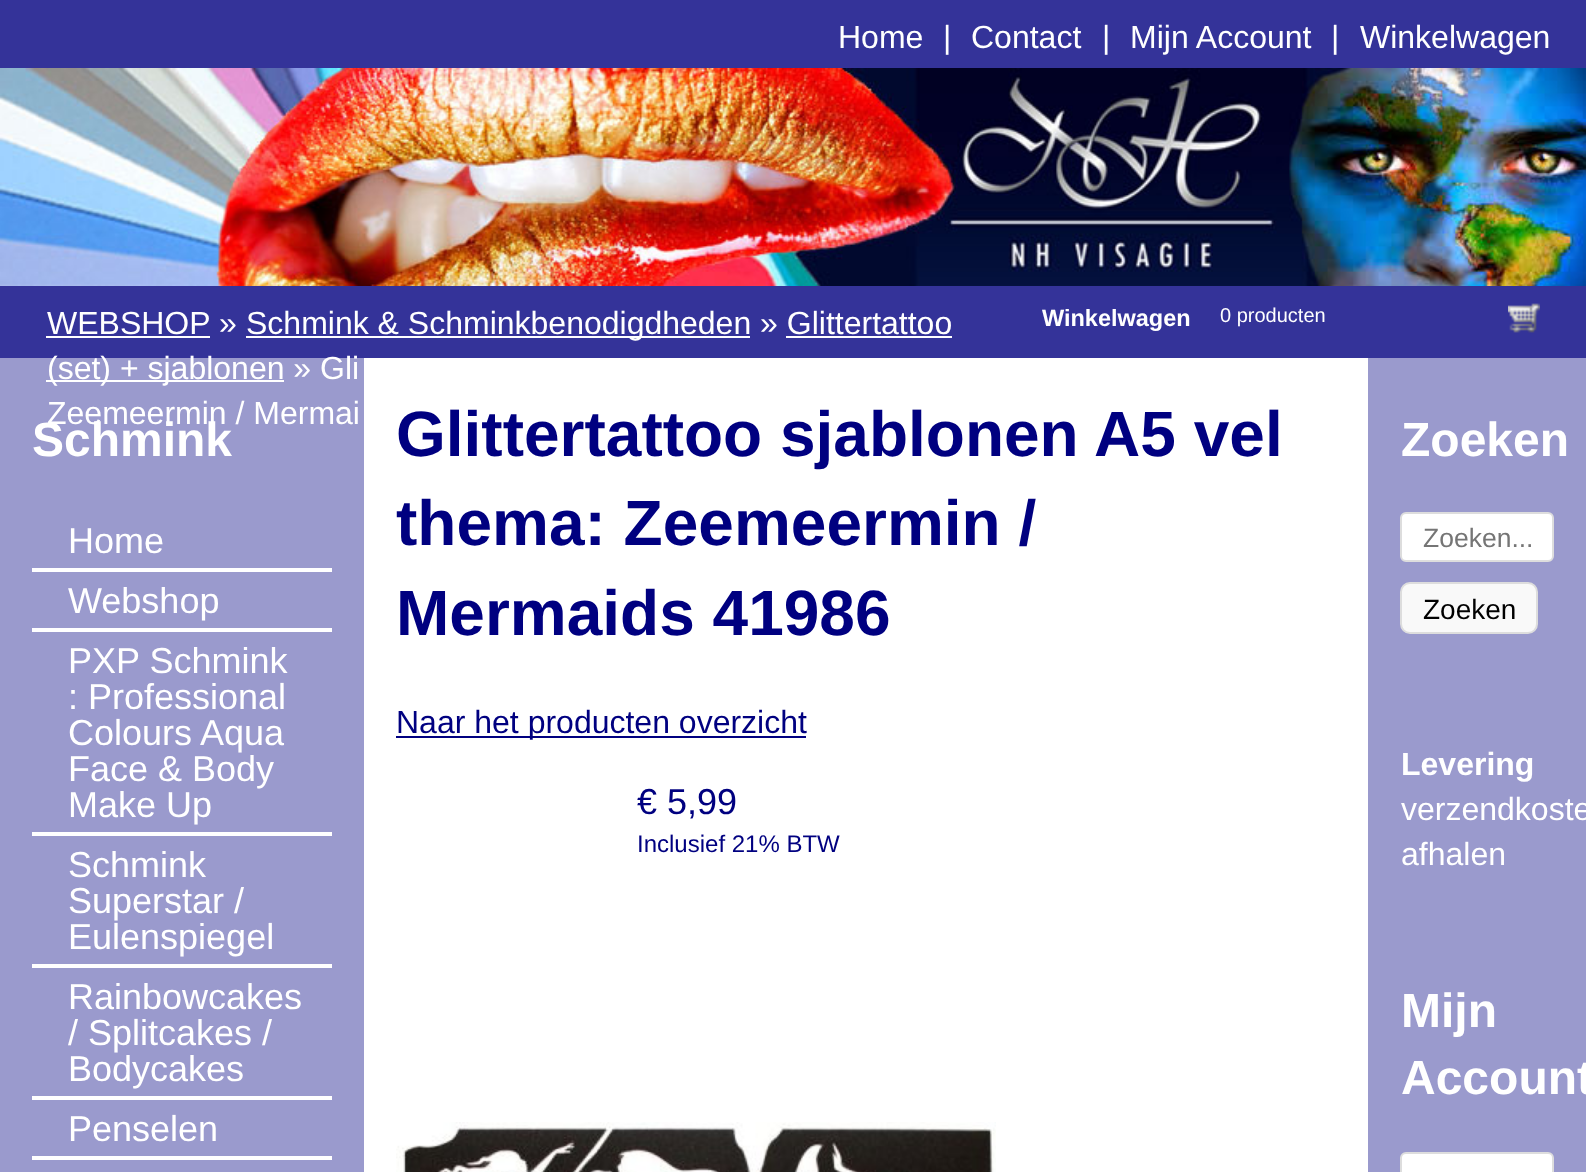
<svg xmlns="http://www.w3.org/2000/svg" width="1586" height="1172">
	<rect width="100%" height="100%" fill="#343399" />
	<g font-family="Liberation Sans" font-size="32" fill="#FFFFFF">
		<text x="838" y="48">Home</text>
		<text x="943" y="48">|</text>
		<text x="971" y="48">Contact</text>
		<text x="1102" y="48">|</text>
		<text x="1130" y="48">Mijn Account</text>
		<text x="1331" y="48">|</text>
		<text x="1360" y="48">Winkelwagen</text>
	</g>
	<image x="0" y="68" width="1586" height="218" href="assets/img1.png" />
	<text x="47" y="334" font-family="Liberation Sans" font-size="32" fill="#FFFFFF">WEBSHOP</text>
	<rect x="46" y="336" width="164" height="2" fill="#FFFFFF" />
	<text x="219" y="334" font-family="Liberation Sans" font-size="32" fill="#FFFFFF">»</text>
	<rect x="246" y="336" width="504" height="2" fill="#FFFFFF" />
	<text x="246" y="334" font-family="Liberation Sans" font-size="32" fill="#FFFFFF">Schmink &amp; Schminkbenodigdheden » Glittertattoo</text>
	<rect x="0" y="358" width="364" height="814" fill="#9A9ACD" />
	<rect x="46" y="380" width="238" height="2" fill="#FFFFFF" />
	<text x="47" y="379" font-family="Liberation Sans" font-size="32" fill="#FFFFFF">(set) + sjablonen » Gli</text>
	<rect x="786" y="336" width="166" height="2" fill="#FFFFFF" />
	<text x="47" y="424" font-family="Liberation Sans" font-size="32" fill="#FFFFFF">Zeemeermin / Mermai</text>
	<text x="1042" y="326" font-family="Liberation Sans" font-size="23.5" font-weight="700" fill="#FFFFFF">Winkelwagen</text>
	<text x="1220" y="322" font-family="Liberation Sans" font-size="20" fill="#FFFFFF">0 producten</text>
	<image x="1508" y="303" width="32" height="30" href="assets/img2.png" />
	<text x="32" y="456" font-family="Liberation Sans" font-size="48" font-weight="700" fill="#FFFFFF">Schmink</text>
	<rect x="32" y="568" width="300" height="4" fill="#FFFFFF" />
	<text x="68" y="553" font-family="Liberation Sans" font-size="36" fill="#FFFFFF">Home</text>
	<rect x="32" y="628" width="300" height="4" fill="#FFFFFF" />
	<text x="68" y="613" font-family="Liberation Sans" font-size="36" fill="#FFFFFF">Webshop</text>
	<rect x="32" y="832" width="300" height="4" fill="#FFFFFF" />
	<g font-family="Liberation Sans" font-size="36" fill="#FFFFFF">
		<text x="68" y="673">PXP Schmink</text>
		<text x="68" y="709">: Professional</text>
		<text x="68" y="745">Colours Aqua</text>
		<text x="68" y="781">Face &amp; Body</text>
		<text x="68" y="817">Make Up</text>
	</g>
	<rect x="32" y="964" width="300" height="4" fill="#FFFFFF" />
	<g font-family="Liberation Sans" font-size="36" fill="#FFFFFF">
		<text x="68" y="877">Schmink</text>
		<text x="68" y="913">Superstar /</text>
		<text x="68" y="949">Eulenspiegel</text>
	</g>
	<rect x="32" y="1096" width="300" height="4" fill="#FFFFFF" />
	<g font-family="Liberation Sans" font-size="36" fill="#FFFFFF">
		<text x="68" y="1009">Rainbowcakes</text>
		<text x="68" y="1045">/ Splitcakes /</text>
		<text x="68" y="1081">Bodycakes</text>
	</g>
	<rect x="32" y="1156" width="300" height="4" fill="#FFFFFF" />
	<text x="68" y="1141" font-family="Liberation Sans" font-size="36" fill="#FFFFFF">Penselen</text>
	<rect x="364" y="358" width="1004" height="814" fill="#FFFFFF" />
	<g font-family="Liberation Sans" font-size="64" font-weight="700" fill="#000080">
		<text x="396" y="456">Glittertattoo sjablonen A5 vel</text>
		<text x="396" y="545">thema: Zeemeermin /</text>
		<text x="396" y="635">Mermaids 41986</text>
	</g>
	<rect x="396" y="736" width="410" height="2" fill="#000080" />
	<text x="396" y="733" font-family="Liberation Sans" font-size="32" fill="#000080">Naar het producten overzicht</text>
	<text x="637" y="814" font-family="Liberation Sans" font-size="36" fill="#000080">€ 5,99</text>
	<text x="637" y="852" font-family="Liberation Sans" font-size="24" fill="#000080">Inclusief 21% BTW</text>
	<image x="396" y="1122" width="600" height="50" href="assets/img3.png" />
	<rect x="1368" y="358" width="218" height="814" fill="#9A9ACD" />
	<text x="1401" y="456" font-family="Liberation Sans" font-size="48" font-weight="700" fill="#FFFFFF">Zoeken</text>
	<rect x="1401" y="513" width="152" height="48" rx="5" fill="#FFFFFF" stroke="#DDDDDD" stroke-width="2" />
	<text x="1423" y="547" font-family="Liberation Sans" font-size="26.5" fill="#757575">Zoeken...</text>
	<rect x="1401" y="583" width="136" height="50" rx="9" fill="#F9F9F9" stroke="#DDDDDD" stroke-width="2" />
	<text x="1423" y="619" font-family="Liberation Sans" font-size="28" fill="#000000">Zoeken</text>
	<text x="1401" y="775" font-family="Liberation Sans" font-size="32" font-weight="700" fill="#FFFFFF">Levering</text>
	<g font-family="Liberation Sans" font-size="32" fill="#FFFFFF">
		<text x="1401" y="820">verzendkoste</text>
		<text x="1401" y="865">afhalen</text>
	</g>
	<g font-family="Liberation Sans" font-size="48" font-weight="700" fill="#FFFFFF">
		<text x="1401" y="1027">Mijn</text>
		<text x="1401" y="1094">Account</text>
	</g>
	<rect x="1401" y="1153" width="152" height="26" rx="5" fill="#FFFFFF" stroke="#DDDDDD" stroke-width="2" />
</svg>
